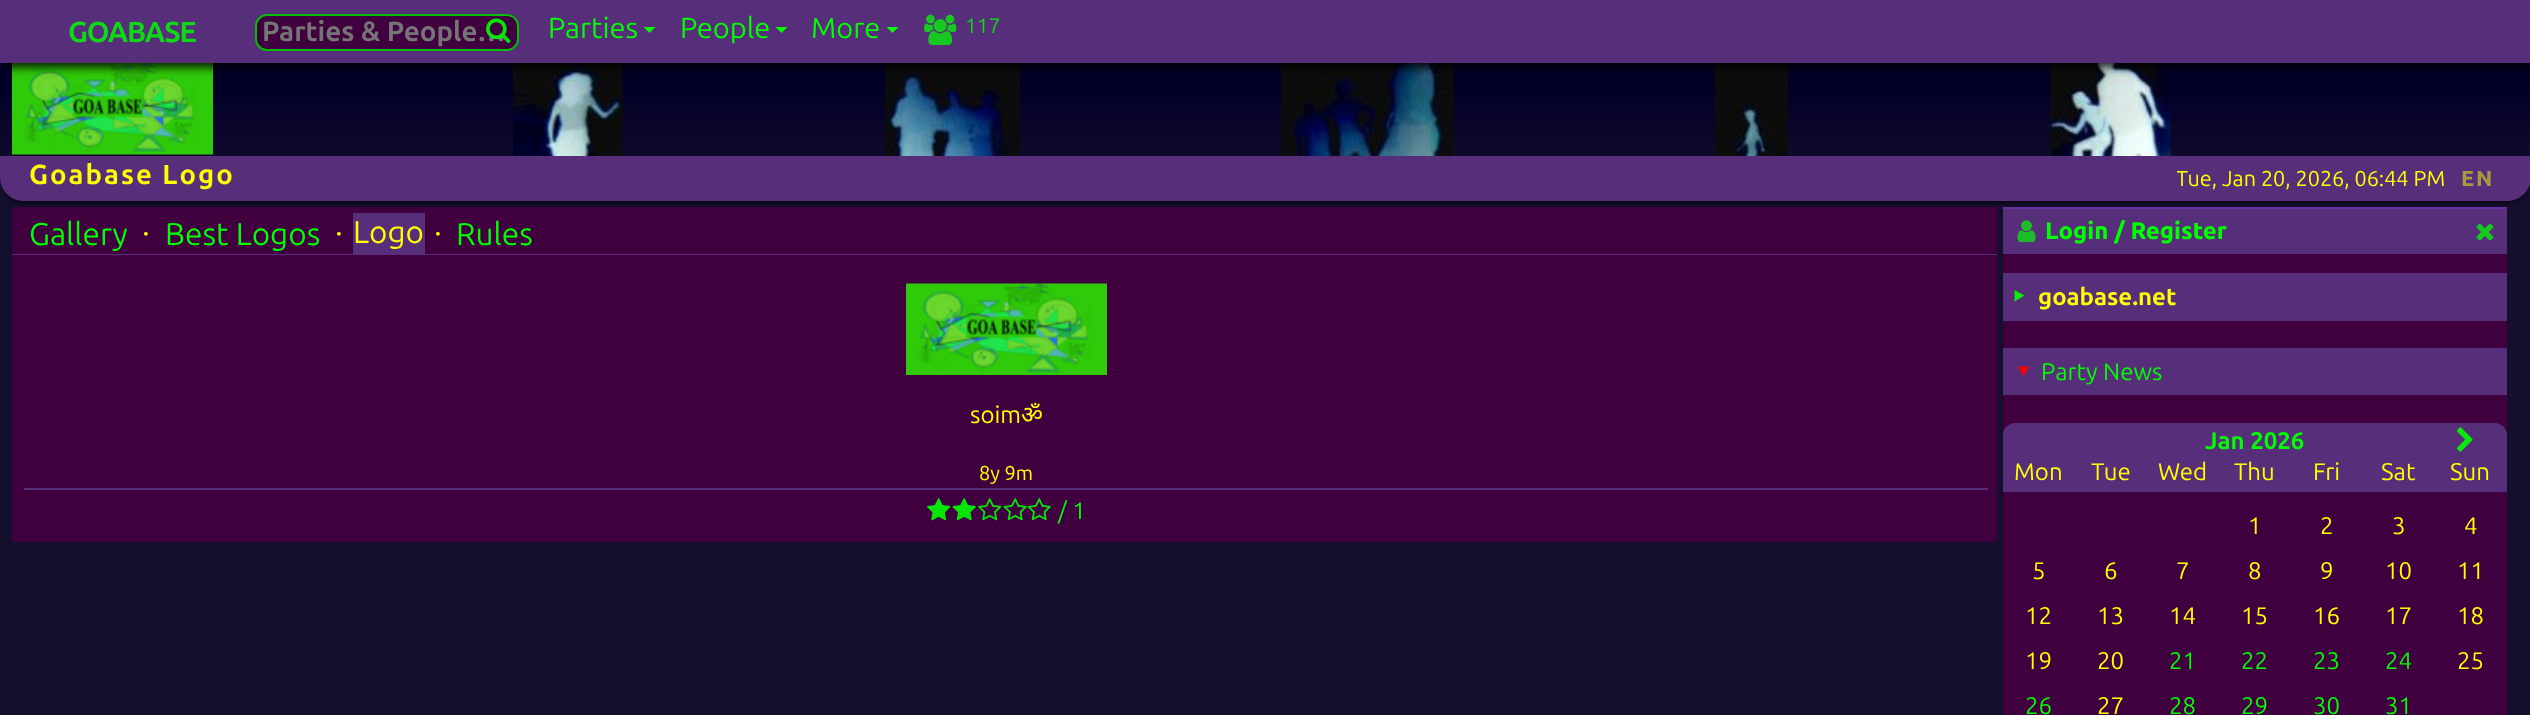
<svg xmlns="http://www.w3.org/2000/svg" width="2530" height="715">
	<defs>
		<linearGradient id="g1" gradientUnits="userSpaceOnUse" x1="1265" y1="0" x2="1265" y2="186"><stop offset="0.48" stop-color="#020027" /><stop offset="1" stop-color="#150F2E" /></linearGradient>
	</defs>
	<rect width="100%" height="100%" fill="#150F2E" />
	<rect x="0" y="63" width="2530" height="93" fill="url(#g1)" />
	<image x="12" y="63" width="201" height="92" href="assets/img3.png" />
	<image x="513" y="63" width="110" height="93" href="assets/img4.png" />
	<image x="885" y="63" width="135" height="93" href="assets/img5.png" />
	<image x="1281" y="63" width="173" height="93" href="assets/img6.png" />
	<image x="1714" y="63" width="74" height="93" href="assets/img7.png" />
	<image x="2050" y="63" width="121" height="93" href="assets/img8.png" />
	<rect x="5" y="5" width="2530" height="63" fill="#000000" fill-opacity="0.8" filter="blur(4px)" />
	<rect x="0" y="0" width="2530" height="63" fill="#562E7A" />
	<text x="68" y="42" font-family="Ubuntu" font-size="29" font-weight="700" letter-spacing="-1.25" fill="#0FD916">GOABASE</text>
	<rect x="256" y="15" width="262" height="35" rx="11" fill="#400040" stroke="#00BF00" stroke-width="2" />
	<text x="262" y="41" font-family="Ubuntu" font-size="27.75" font-weight="700" fill="#757575">Parties &amp; People…</text>
	<image x="486" y="18" width="25" height="25" href="assets/img1.png" />
	<text x="548" y="38" font-family="Ubuntu" font-size="29" fill="#00FF00">Parties</text>
	<path d="M643.5 27H655.5L649.5 33Z" fill="#00FF00" />
	<text x="680" y="38" font-family="Ubuntu" font-size="29" fill="#00FF00">People</text>
	<path d="M775.5 27H787.5L781.5 33Z" fill="#00FF00" />
	<text x="811" y="38" font-family="Ubuntu" font-size="29" fill="#00FF00">More</text>
	<path d="M886.5 27H898.5L892.5 33Z" fill="#00FF00" />
	<image x="924" y="14" width="33" height="32" href="assets/img2.png" />
	<text x="965" y="33" font-family="Ubuntu" font-size="21" fill="#0FD916">117</text>
	<rect x="12" y="207" width="1985" height="47" fill="#400040" />
	<rect x="2003" y="209" width="504" height="45" fill="#562E7A" />
	<rect x="2003" y="207" width="504" height="2" fill="#6C30A4" />
	<rect x="3" y="165" width="2525" height="39" rx="21" fill="#000000" fill-opacity="0.5" filter="blur(1.5px)" />
	<path d="M0 156H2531V177C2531 190.5 2520.5 201 2507 201H24C10.5 201 0 190.5 0 177Z" fill="#562E7A" />
	<text x="2176" y="186" font-family="Ubuntu" font-size="21.6" fill="#FFFF00">Tue, Jan 20, 2026, 06:44 PM</text>
	<rect x="2176" y="171" width="1" height="2" fill="#562E7A" />
	<text x="29" y="184" font-family="Ubuntu" font-size="27.5" font-weight="700" letter-spacing="2" fill="#FFFF00">Goabase Logo</text>
	<text x="2461" y="186" font-family="Ubuntu" font-size="21.6" font-weight="800" letter-spacing="2" fill="#AB973D">EN</text>
	<rect x="12" y="254" width="1985" height="1" fill="#562E7A" />
	<text x="29" y="245" font-family="Ubuntu" font-size="31.5" fill="#00FF00">Gallery</text>
	<text x="142" y="243" font-family="Ubuntu" font-size="31.5" fill="#FFFF00">·</text>
	<text x="165" y="245" font-family="Ubuntu" font-size="31.5" fill="#00FF00">Best Logos</text>
	<text x="335" y="243" font-family="Ubuntu" font-size="31.5" fill="#FFFF00">·</text>
	<rect x="353" y="213" width="72" height="41" fill="#562E7A" />
	<g font-family="Ubuntu" font-size="31.5" fill="#FFFF00">
		<text x="353" y="243">Logo</text>
		<text x="434" y="243">·</text>
	</g>
	<text x="456" y="245" font-family="Ubuntu" font-size="31.5" fill="#00FF00">Rules</text>
	<rect x="12" y="255" width="1985" height="287" fill="#400040" />
	<image x="906" y="283" width="201" height="92" href="assets/img9.png" />
	<text x="970" y="423" font-family="Ubuntu" font-size="24" fill="#FFFF00">soim</text>
	<text x="1021" y="423" font-family="Noto Sans" font-size="24" fill="#FFFF00">ॐ</text>
	<text x="979" y="480" font-family="Ubuntu" font-size="20" fill="#FFFF00">8y 9m</text>
	<rect x="24" y="488" width="1964" height="2" fill="#562E7A" />
	<image x="927" y="498" width="24" height="23" href="assets/img10.png" />
	<image x="952" y="498" width="24" height="23" href="assets/img11.png" />
	<image x="978" y="498" width="24" height="23" href="assets/img12.png" />
	<image x="1003" y="498" width="24" height="23" href="assets/img13.png" />
	<image x="1027" y="498" width="24" height="23" href="assets/img13.png" />
	<text x="1058" y="519" font-family="Ubuntu" font-size="24" fill="#00FF00">/ 1</text>
	<rect x="2003" y="254" width="504" height="461" fill="#400040" />
	<image x="2017" y="220" width="19" height="22" href="assets/img14.png" />
	<text x="2045" y="239" font-family="Ubuntu" font-size="24" font-weight="800" fill="#00FF00">Login / Register</text>
	<image x="2476" y="223" width="18" height="18" href="assets/img15.png" />
	<rect x="2003" y="273" width="504" height="48" fill="#562E7A" />
	<path d="M2014.5 290L2024.5 295.5L2014.5 301.5Z" fill="#09EA0C" />
	<text x="2038" y="305" font-family="Ubuntu" font-size="24" font-weight="700" fill="#FFFF00">goabase.net</text>
	<rect x="2003" y="348" width="504" height="47" fill="#562E7A" />
	<path d="M2029.5 366.5L2023.5 376.5L2018 366.5Z" fill="#EE050C" />
	<text x="2041" y="380" font-family="Ubuntu" font-size="24" fill="#00FF00">Party News</text>
	<path d="M2015 423H2495C2501.5 423 2507 428.5 2507 435V458H2003V435C2003 428.5 2008.5 423 2015 423Z" fill="#562E7A" />
	<text x="2205" y="449" font-family="Ubuntu" font-size="24" font-weight="700" fill="#00FF00">Jan 2026</text>
	<image x="2456" y="427" width="17" height="25" href="assets/img16.png" />
	<rect x="2003" y="458" width="504" height="34" fill="#562E7A" />
	<g font-family="Ubuntu" font-size="24" fill="#FFFF00">
		<text x="2014" y="480">Mon</text>
		<text x="2091" y="480">Tue</text>
		<text x="2158" y="480">Wed</text>
		<text x="2234" y="480">Thu</text>
		<text x="2313" y="480">Fri</text>
		<text x="2381" y="480">Sat</text>
		<text x="2450" y="480">Sun</text>
		<text x="2248" y="534">1</text>
		<text x="2320" y="534">2</text>
		<text x="2392" y="534">3</text>
		<text x="2464" y="534">4</text>
		<text x="2032" y="579">5</text>
		<text x="2104" y="579">6</text>
		<text x="2176" y="579">7</text>
		<text x="2248" y="579">8</text>
		<text x="2320" y="579">9</text>
		<text x="2385" y="579">10</text>
		<text x="2457" y="579">11</text>
		<text x="2025" y="624">12</text>
		<text x="2097" y="624">13</text>
		<text x="2169" y="624">14</text>
		<text x="2241" y="624">15</text>
		<text x="2313" y="624">16</text>
		<text x="2385" y="624">17</text>
		<text x="2457" y="624">18</text>
		<text x="2025" y="669">19</text>
		<text x="2097" y="669">20</text>
	</g>
	<g font-family="Ubuntu" font-size="24" fill="#00FF00">
		<text x="2169" y="669">21</text>
		<text x="2241" y="669">22</text>
		<text x="2313" y="669">23</text>
		<text x="2385" y="669">24</text>
	</g>
	<text x="2457" y="669" font-family="Ubuntu" font-size="24" fill="#FFFF00">25</text>
	<text x="2025" y="714" font-family="Ubuntu" font-size="24" fill="#00FF00">26</text>
	<text x="2097" y="714" font-family="Ubuntu" font-size="24" fill="#FFFF00">27</text>
	<g font-family="Ubuntu" font-size="24" fill="#00FF00">
		<text x="2169" y="714">28</text>
		<text x="2241" y="714">29</text>
		<text x="2313" y="714">30</text>
		<text x="2385" y="714">31</text>
	</g>
</svg>
